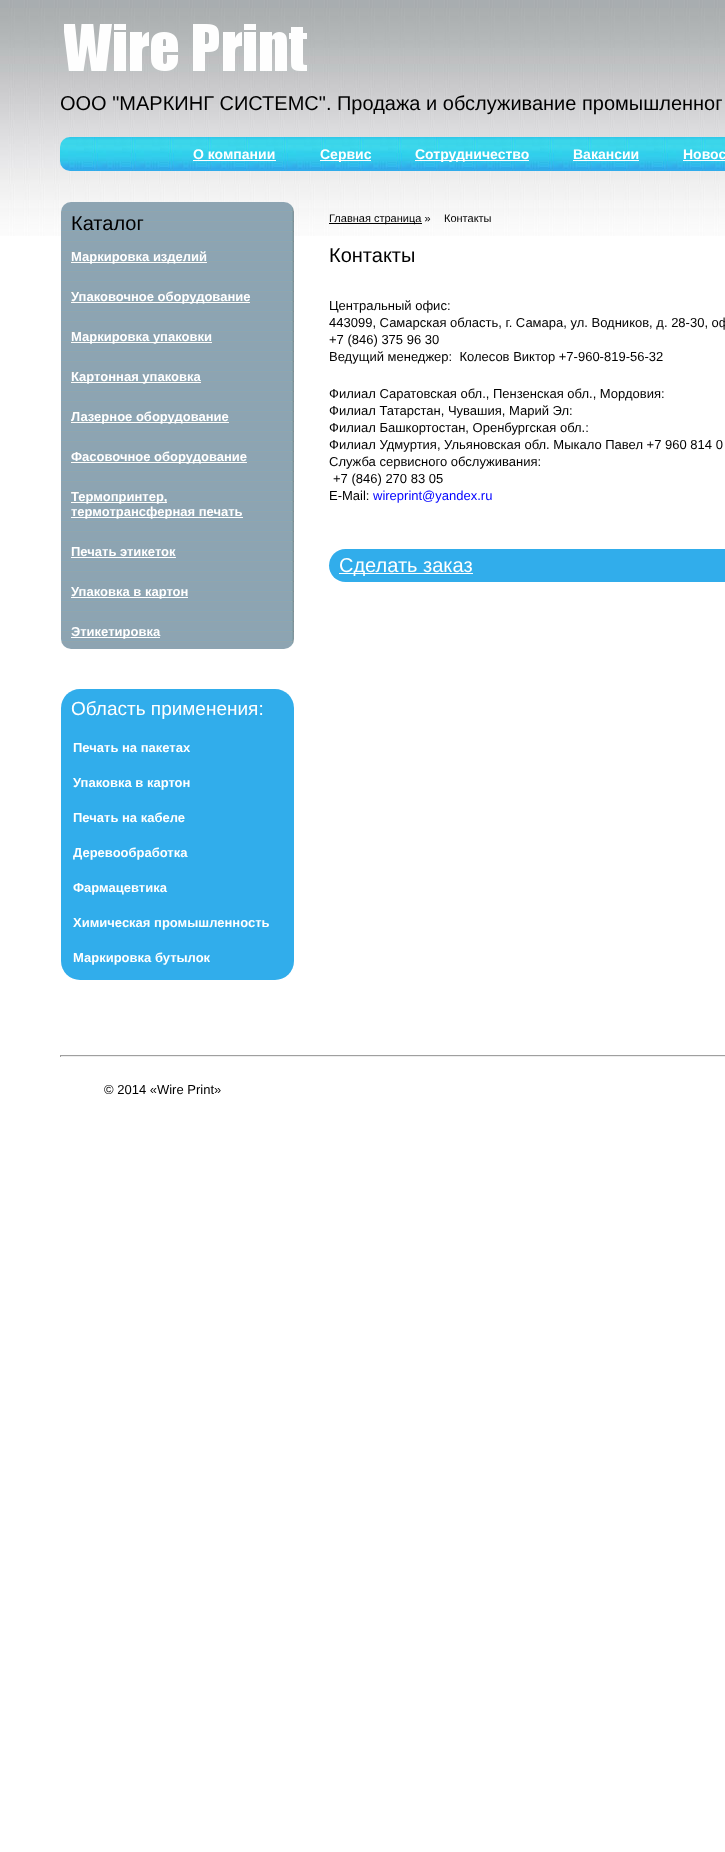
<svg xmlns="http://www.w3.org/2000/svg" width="725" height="1852">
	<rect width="100%" height="100%" fill="#FFFFFF" />
	<image x="0" y="0" width="725" height="236" href="assets/img1.png" />
	<image x="64" y="24" width="243" height="47" href="assets/img2.png" />
	<text x="60" y="110" font-family="Liberation Sans" font-size="20" fill="#000000">ООО "МАРКИНГ СИСТЕМС". Продажа и обслуживание промышленног</text>
	<image x="60" y="137" width="665" height="34" href="assets/img3.png" />
	<text x="193" y="159" font-family="Liberation Sans" font-size="14" font-weight="700" fill="#FFFFFF">О компании</text>
	<rect x="193" y="160" width="83" height="1" fill="#FFFFFF" />
	<rect x="320" y="160" width="51" height="1" fill="#FFFFFF" />
	<text x="320" y="159" font-family="Liberation Sans" font-size="14" font-weight="700" fill="#FFFFFF">Сервис</text>
	<rect x="415" y="160" width="114" height="1" fill="#FFFFFF" />
	<g font-family="Liberation Sans" font-size="14" font-weight="700" fill="#FFFFFF">
		<text x="415" y="159">Сотрудничество</text>
		<text x="573" y="159">Вакансии</text>
	</g>
	<rect x="573" y="160" width="66" height="1" fill="#FFFFFF" />
	<text x="683" y="159" font-family="Liberation Sans" font-size="14" font-weight="700" fill="#FFFFFF">Новос</text>
	<rect x="683" y="160" width="42" height="1" fill="#FFFFFF" />
	<image x="61" y="202" width="233" height="447" href="assets/img4.png" />
	<text x="71" y="230" font-family="Liberation Sans" font-size="20" fill="#000000">Каталог</text>
	<rect x="71" y="262" width="136" height="1" fill="#FFFFFF" />
	<text x="71" y="261" font-family="Liberation Sans" font-size="13" font-weight="700" fill="#FFFFFF">Маркировка изделий</text>
	<rect x="71" y="302" width="179" height="1" fill="#FFFFFF" />
	<text x="71" y="301" font-family="Liberation Sans" font-size="13" font-weight="700" fill="#FFFFFF">Упаковочное оборудование</text>
	<rect x="71" y="342" width="141" height="1" fill="#FFFFFF" />
	<text x="71" y="341" font-family="Liberation Sans" font-size="13" font-weight="700" fill="#FFFFFF">Маркировка упаковки</text>
	<rect x="71" y="382" width="130" height="1" fill="#FFFFFF" />
	<text x="71" y="381" font-family="Liberation Sans" font-size="13" font-weight="700" fill="#FFFFFF">Картонная упаковка</text>
	<rect x="71" y="422" width="158" height="1" fill="#FFFFFF" />
	<text x="71" y="421" font-family="Liberation Sans" font-size="13" font-weight="700" fill="#FFFFFF">Лазерное оборудование</text>
	<rect x="71" y="462" width="176" height="1" fill="#FFFFFF" />
	<text x="71" y="461" font-family="Liberation Sans" font-size="13" font-weight="700" fill="#FFFFFF">Фасовочное оборудование</text>
	<rect x="71" y="502" width="96" height="1" fill="#FFFFFF" />
	<text x="71" y="501" font-family="Liberation Sans" font-size="13" font-weight="700" fill="#FFFFFF">Термопринтер,</text>
	<rect x="71" y="517" width="172" height="1" fill="#FFFFFF" />
	<g font-family="Liberation Sans" font-size="13" font-weight="700" fill="#FFFFFF">
		<text x="71" y="516">термотрансферная печать</text>
		<text x="71" y="556">Печать этикеток</text>
	</g>
	<rect x="71" y="557" width="105" height="1" fill="#FFFFFF" />
	<rect x="71" y="597" width="117" height="1" fill="#FFFFFF" />
	<text x="71" y="596" font-family="Liberation Sans" font-size="13" font-weight="700" fill="#FFFFFF">Упаковка в картон</text>
	<rect x="71" y="637" width="89" height="1" fill="#FFFFFF" />
	<text x="71" y="636" font-family="Liberation Sans" font-size="13" font-weight="700" fill="#FFFFFF">Этикетировка</text>
	<rect x="61" y="689" width="233" height="291" rx="19" fill="#31ADEB" />
	<text x="71" y="715" font-family="Liberation Sans" font-size="19" fill="#FFFFFF">Область применения:</text>
	<g font-family="Liberation Sans" font-size="13" font-weight="700" fill="#FFFFFF">
		<text x="73" y="752">Печать на пакетах</text>
		<text x="73" y="787">Упаковка в картон</text>
		<text x="73" y="822">Печать на кабеле</text>
		<text x="73" y="857">Деревообработка</text>
		<text x="73" y="892">Фармацевтика</text>
		<text x="73" y="927">Химическая промышленность</text>
		<text x="73" y="962">Маркировка бутылок</text>
	</g>
	<rect x="329" y="223" width="93" height="1" fill="#000000" />
	<g font-family="Liberation Sans" font-size="11" fill="#000000">
		<text x="329" y="222">Главная страница »</text>
		<text x="444" y="222">Контакты</text>
	</g>
	<text x="329" y="262" font-family="Liberation Sans" font-size="20" fill="#000000">Контакты</text>
	<g font-family="Liberation Sans" font-size="13" fill="#000000">
		<text x="329" y="310">Центральный офис:</text>
		<text x="329" y="327">443099, Самарская область, г. Самара, ул. Водников, д. 28-30, оф</text>
		<text x="329" y="344">+7 (846) 375 96 30</text>
		<text x="329" y="361" xml:space="preserve">Ведущий менеджер:  Колесов Виктор +7-960-819-56-32</text>
		<text x="329" y="398">Филиал Саратовская обл., Пензенская обл., Мордовия:</text>
		<text x="329" y="415">Филиал Татарстан, Чувашия, Марий Эл:</text>
		<text x="329" y="432">Филиал Башкортостан, Оренбургская обл.:</text>
		<text x="329" y="449">Филиал Удмуртия, Ульяновская обл. Мыкало Павел +7 960 814 0</text>
		<text x="329" y="466">Служба сервисного обслуживания:</text>
		<text x="333" y="483">+7 (846) 270 83 05</text>
		<text x="329" y="500">E-Mail:</text>
	</g>
	<text x="373" y="500" font-family="Liberation Sans" font-size="13" fill="#0000FF">wireprint@yandex.ru</text>
	<rect x="329" y="549" width="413" height="33" rx="16.5" fill="#31ADEB" />
	<rect x="339" y="573" width="134" height="1" fill="#FFFFFF" />
	<text x="339" y="572" font-family="Liberation Sans" font-size="20" fill="#FFFFFF">Сделать заказ</text>
	<rect x="60" y="1055" width="665" height="1" fill="#9F9F9F" />
	<rect x="60" y="1056" width="665" height="1" fill="#EEEEEE" />
	<rect x="60" y="1055" width="1" height="2" fill="#9F9F9F" />
	<text x="104" y="1094" font-family="Liberation Sans" font-size="13" fill="#000000">© 2014 «Wire Print»</text>
</svg>
